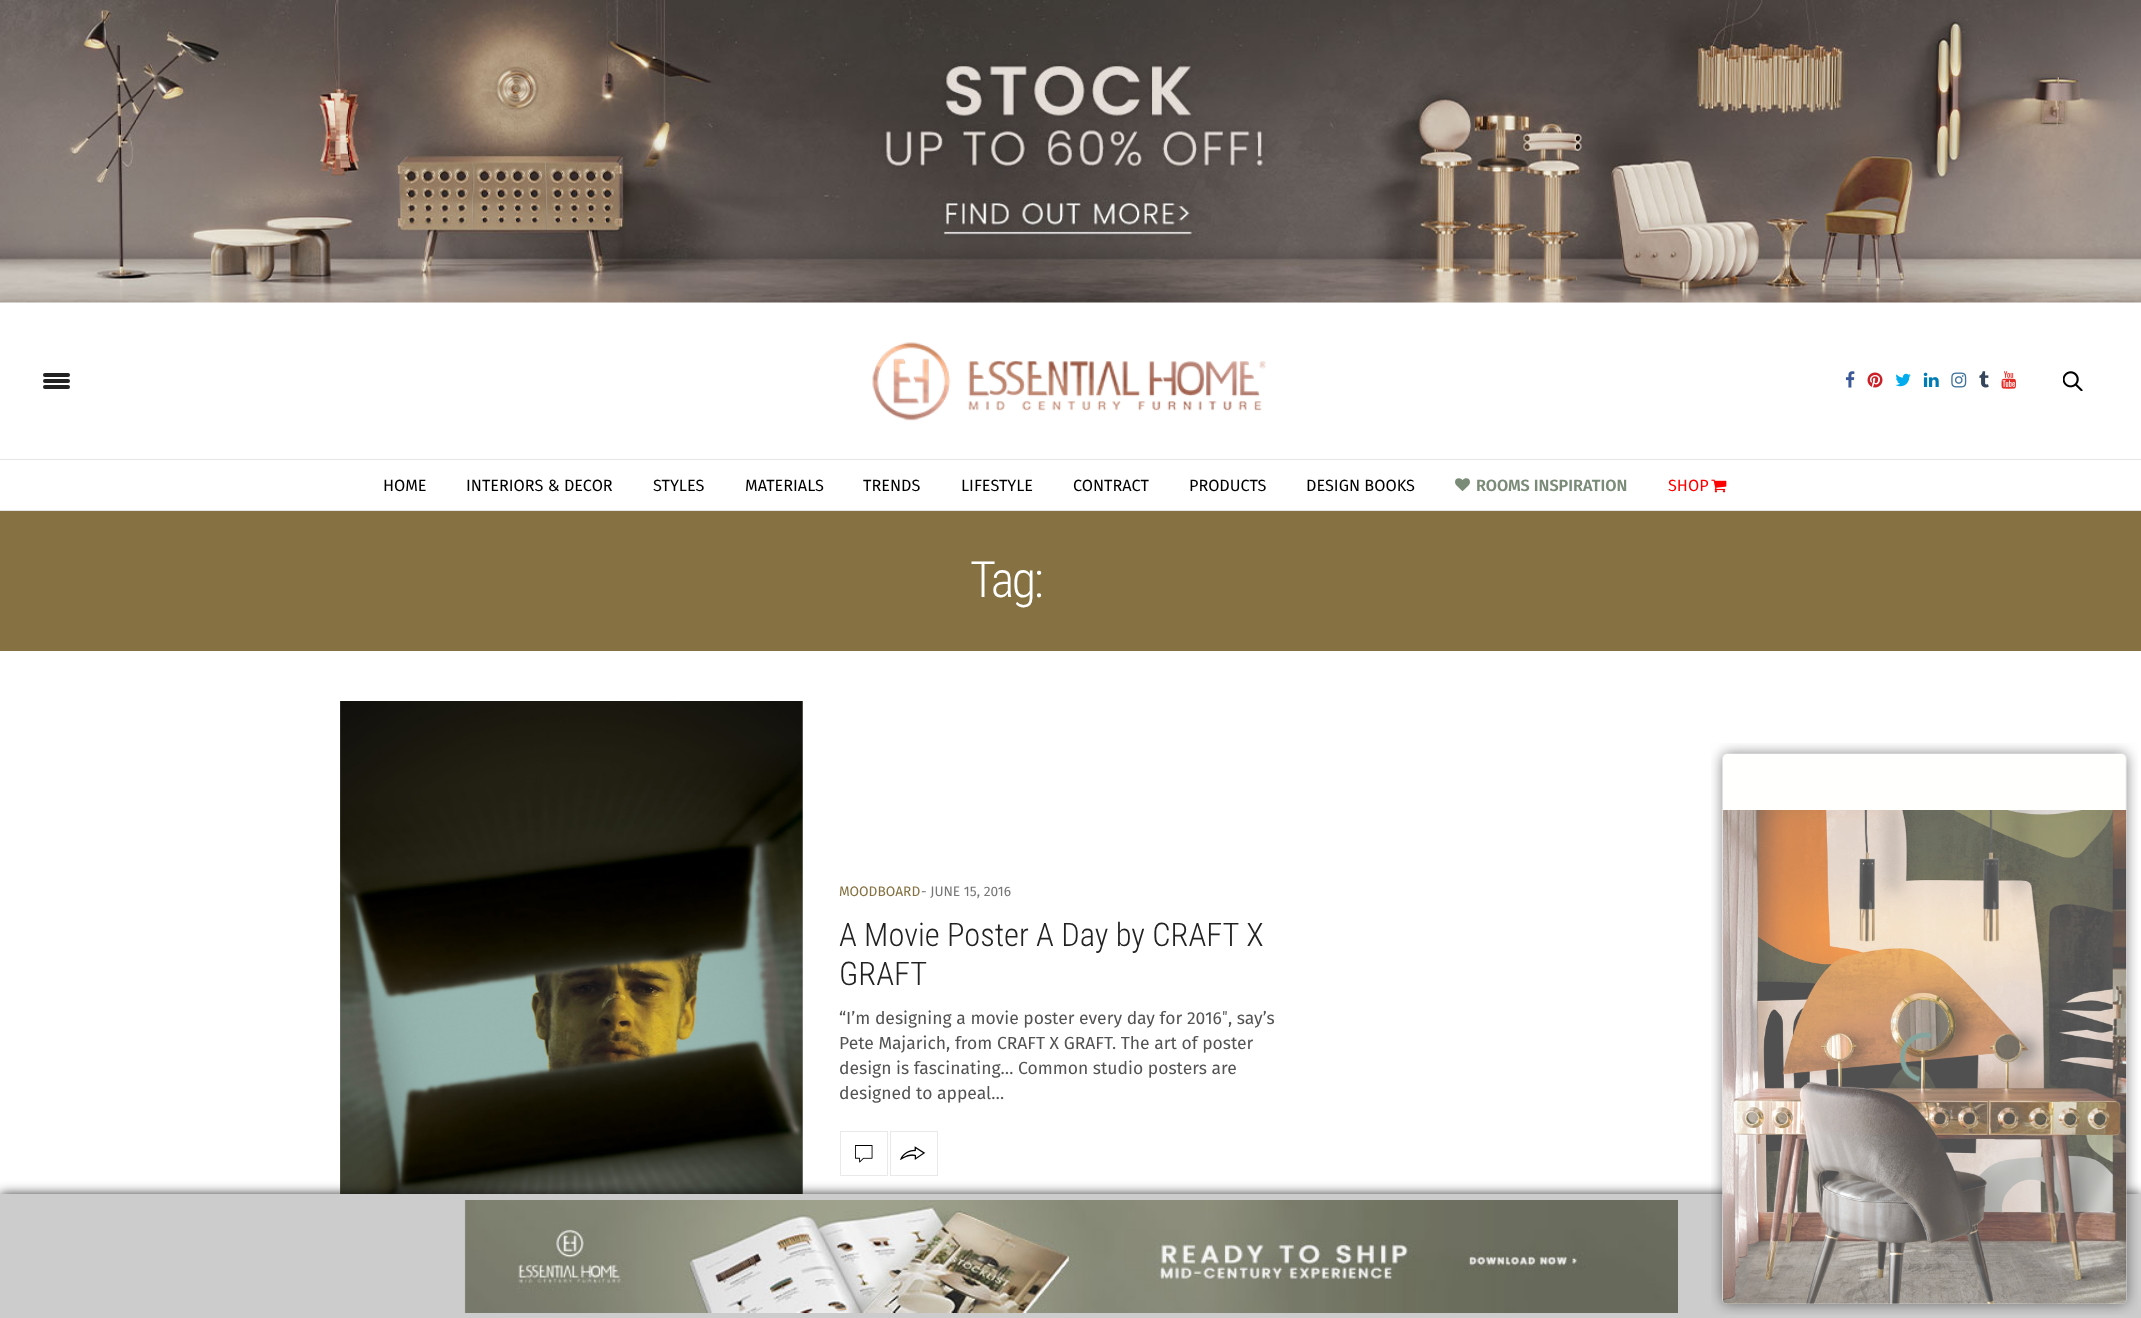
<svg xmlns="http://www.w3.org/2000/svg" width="2141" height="1318">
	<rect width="100%" height="100%" fill="#FFFFFF" />
	<image x="0" y="0" width="2141" height="303" href="assets/img1.png" />
	<rect x="0" y="459" width="2141" height="1" fill="#E6E6E6" />
	<rect x="43" y="373" width="27" height="4" rx="2" fill="#222222" />
	<rect x="43" y="379" width="27" height="4" rx="2" fill="#222222" />
	<rect x="43" y="385" width="27" height="4" rx="2" fill="#222222" />
	<image x="872" y="342" width="394" height="79" href="assets/img2.png" />
	<image x="1845" y="371" width="10" height="17" href="assets/img3.png" />
	<image x="1867" y="372" width="16" height="16" href="assets/img4.png" />
	<image x="1895" y="373" width="16" height="14" href="assets/img5.png" />
	<image x="1923" y="372" width="16" height="15" href="assets/img6.png" />
	<image x="1951" y="372" width="16" height="16" href="assets/img7.png" />
	<image x="1979" y="371" width="10" height="17" href="assets/img8.png" />
	<image x="2001" y="371" width="15" height="18" href="assets/img9.png" />
	<image x="2063" y="371" width="20" height="20" href="assets/img10.png" />
	<rect x="0" y="510" width="2141" height="1" fill="#E6E6E6" />
	<g font-family="Fira Sans" font-size="16.25" fill="#000000">
		<text x="383" y="491">HOME</text>
		<text x="466" y="491">INTERIORS &amp; DECOR</text>
		<text x="653" y="491">STYLES</text>
		<text x="745" y="491">MATERIALS</text>
		<text x="863" y="491">TRENDS</text>
		<text x="961" y="491">LIFESTYLE</text>
		<text x="1073" y="491">CONTRACT</text>
		<text x="1189" y="491">PRODUCTS</text>
		<text x="1306" y="491">DESIGN BOOKS</text>
	</g>
	<image x="1455" y="478" width="15" height="13" href="assets/img11.png" />
	<text x="1476" y="491" font-family="Fira Sans" font-size="16.25" font-weight="600" fill="#7A8C78">ROOMS INSPIRATION</text>
	<text x="1668" y="491" font-family="Fira Sans" font-size="16.25" fill="#FF0000">SHOP</text>
	<image x="1711" y="479" width="16" height="14" href="assets/img12.png" />
	<rect x="0" y="511" width="2141" height="140" fill="#857141" />
	<text x="970" y="597" font-family="Roboto Condensed" font-size="50" font-weight="300" letter-spacing="-2.5" fill="#FFFFFF">Tag:</text>
	<image x="340" y="701" width="463" height="493" href="assets/img13.png" />
	<text x="839" y="896" font-family="Fira Sans" font-size="13.75" fill="#857141">MOODBOARD</text>
	<text x="921" y="896" font-family="Fira Sans" font-size="13.75" fill="#767676">- JUNE 15, 2016</text>
	<g font-family="Roboto Condensed" font-size="32.5" font-weight="300" fill="#222222">
		<text x="839" y="946">A Movie Poster A Day by CRAFT X</text>
		<text x="839" y="985">GRAFT</text>
	</g>
	<text x="839" y="1024" font-family="Fira Sans" font-size="17.5" fill="#545353">“I’m designing a movie poster every day for 2016</text>
	<text x="1222" y="1024" font-family="Roboto" font-size="17.5" fill="#545353">″</text>
	<g font-family="Fira Sans" font-size="17.5" fill="#545353">
		<text x="1228" y="1024">, say’s</text>
		<text x="839" y="1049">Pete Majarich, from CRAFT X GRAFT. The art of poster</text>
		<text x="839" y="1074">design is fascinating… Common studio posters are</text>
		<text x="839" y="1099">designed to appeal…</text>
	</g>
	<rect x="840.5" y="1131.5" width="47" height="44" fill="none" stroke="#E9E9E9" />
	<image x="855" y="1145" width="18" height="18" href="assets/img14.png" />
	<rect x="890.5" y="1131.5" width="47" height="44" fill="none" stroke="#E9E9E9" />
	<image x="900" y="1146" width="26" height="14" href="assets/img15.png" />
	<rect x="0" y="1194" width="2141" height="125" fill="#000000" fill-opacity="0.8" filter="blur(6px)" />
	<rect x="0" y="1194" width="2141" height="124" fill="#CCCCCC" />
	<image x="1711" y="743" width="427" height="572" href="assets/img16.png" />
	<image x="464" y="1200" width="1214" height="113" href="assets/img17.png" />
</svg>
